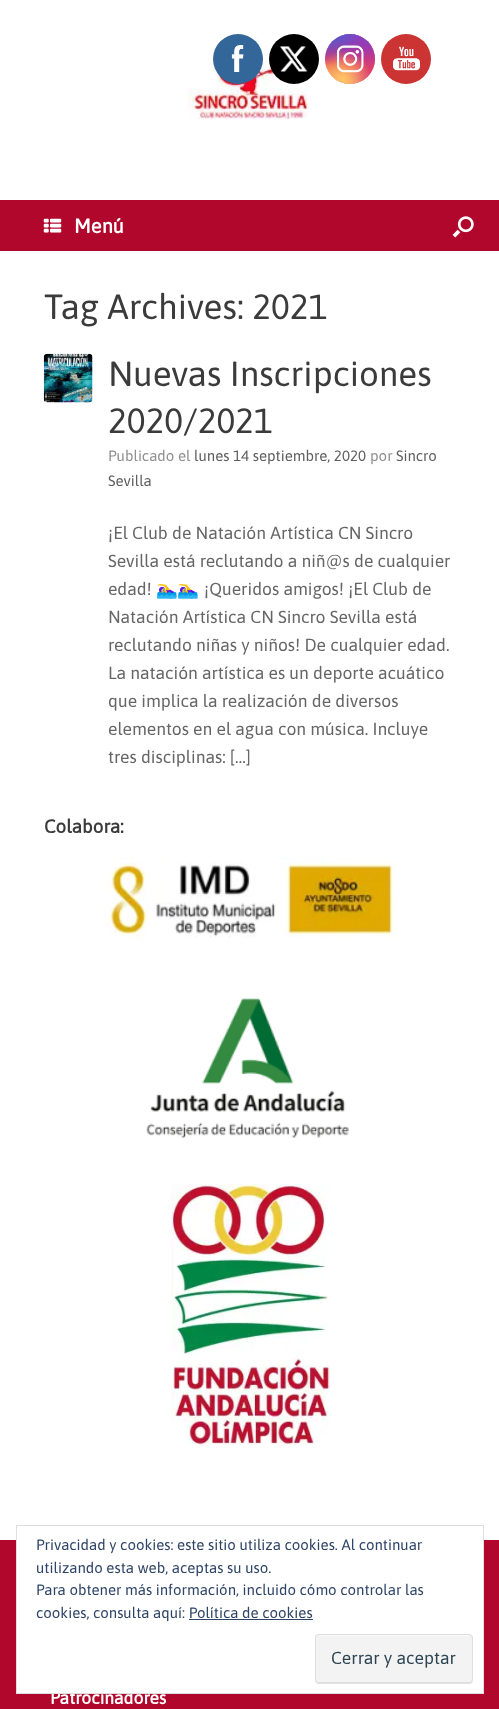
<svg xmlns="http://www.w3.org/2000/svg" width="499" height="1709">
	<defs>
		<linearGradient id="g1" gradientUnits="userSpaceOnUse" x1="350" y1="34" x2="350" y2="84"><stop offset="0" stop-color="#6559CA" /><stop offset="0.3" stop-color="#BC318F" /><stop offset="0.5" stop-color="#E33F5F" /><stop offset="0.7" stop-color="#F77638" /><stop offset="1" stop-color="#FEC66D" /></linearGradient>
		<radialGradient id="g2" gradientUnits="userSpaceOnUse" cx="375" cy="84" r="71"><stop offset="0" stop-color="#D9317A" /><stop offset="1" stop-color="#D9317A" stop-opacity="0" /></radialGradient>
		<radialGradient id="g3" gradientUnits="userSpaceOnUse" cx="0" cy="0" r="1" gradientTransform="matrix(42 0 0 85 355 24)"><stop offset="0" stop-color="#893DC2" /><stop offset="0.5" stop-color="#893DC2" stop-opacity="0" /></radialGradient>
		<radialGradient id="g4" gradientUnits="userSpaceOnUse" cx="375" cy="34" r="71"><stop offset="0" stop-color="#893DC2" /><stop offset="0.5" stop-color="#893DC2" stop-opacity="0" /></radialGradient>
		<radialGradient id="g5" gradientUnits="userSpaceOnUse" cx="0" cy="0" r="1" gradientTransform="matrix(57 0 0 106 335 9)"><stop offset="0" stop-color="#5258CF" /><stop offset="0.5" stop-color="#5258CF" stop-opacity="0" /></radialGradient>
		<radialGradient id="g6" gradientUnits="userSpaceOnUse" cx="0" cy="0" r="1" gradientTransform="matrix(71 0 0 88 325 21)"><stop offset="0" stop-color="#5258CF" /><stop offset="0.5" stop-color="#5258CF" stop-opacity="0" /></radialGradient>
		<radialGradient id="g7" gradientUnits="userSpaceOnUse" cx="325" cy="104" r="86"><stop offset="0" stop-color="#FEC564" /><stop offset="0.5" stop-color="#FEC564" stop-opacity="0" /></radialGradient>
		<radialGradient id="g8" gradientUnits="userSpaceOnUse" cx="343" cy="79" r="56"><stop offset="0" stop-color="#FEC564" /><stop offset="0.5" stop-color="#FEC564" stop-opacity="0" /></radialGradient>
	</defs>
	<rect width="100%" height="100%" fill="#FFFFFF" />
	<image x="187" y="38" width="122" height="82" href="assets/img5.png" />
	<circle cx="238" cy="59" r="25" fill="#336699" />
	<image x="231" y="45" width="13" height="27" href="assets/img1.png" />
	<circle cx="294" cy="59" r="25" fill="#000000" />
	<image x="280" y="46" width="28" height="26" href="assets/img2.png" />
	<circle cx="350" cy="59" r="25" fill="url(#g1)" />
	<circle cx="350" cy="59" r="25" fill="url(#g2)" />
	<circle cx="350" cy="59" r="25" fill="url(#g3)" />
	<circle cx="350" cy="59" r="25" fill="url(#g4)" />
	<circle cx="350" cy="59" r="25" fill="url(#g5)" />
	<circle cx="350" cy="59" r="25" fill="url(#g6)" />
	<circle cx="350" cy="59" r="25" fill="url(#g7)" />
	<circle cx="350" cy="59" r="25" fill="url(#g8)" />
	<image x="337" y="45" width="27" height="28" href="assets/img3.png" />
	<circle cx="406" cy="59" r="25" fill="#CC3333" />
	<image x="393" y="46" width="27" height="25" href="assets/img4.png" />
	<rect x="0" y="200" width="499" height="51" fill="#B2072C" />
	<image x="43" y="218" width="19" height="15" href="assets/img6.png" />
	<text x="74" y="233" font-family="Asap" font-size="20" font-weight="700" fill="#FFFFFF">Menú</text>
	<image x="452" y="216" width="22" height="22" href="assets/img7.png" />
	<text x="44" y="319" font-family="Asap" font-size="35" fill="#3B3B3B">Tag Archives: 2021</text>
	<image x="43" y="353" width="50" height="50" href="assets/img8.png" />
	<g font-family="Asap" font-size="35" fill="#3B3B3B">
		<text x="108" y="386">Nuevas Inscripciones</text>
		<text x="108" y="433">2020/2021</text>
	</g>
	<text x="108" y="461" font-family="Asap" font-size="15" fill="#8F8F8F">Publicado el</text>
	<text x="194" y="461" font-family="Asap" font-size="15" fill="#5E5E5E">lunes 14 septiembre, 2020</text>
	<text x="370" y="461" font-family="Asap" font-size="15" fill="#8F8F8F">por</text>
	<g font-family="Asap" font-size="15" fill="#5E5E5E">
		<text x="396" y="461">Sincro</text>
		<text x="108" y="486">Sevilla</text>
	</g>
	<g font-family="Asap" font-size="17.5" fill="#666666">
		<text x="108" y="539">¡El Club de Natación Artística CN Sincro</text>
		<text x="108" y="567">Sevilla está reclutando a niñ@s de cualquier</text>
		<text x="108" y="595">edad!</text>
	</g>
	<text x="156" y="595" font-family="Noto Color Emoji" font-size="17.5" fill="#666666">🏊‍♀️🏊‍♀️</text>
	<g font-family="Asap" font-size="17.5" fill="#666666">
		<text x="204" y="595">¡Queridos amigos! ¡El Club de</text>
		<text x="108" y="623">Natación Artística CN Sincro Sevilla está</text>
		<text x="108" y="651">reclutando niñas y niños! De cualquier edad.</text>
		<text x="108" y="679">La natación artística es un deporte acuático</text>
		<text x="108" y="707">que implica la realización de diversos</text>
		<text x="108" y="735">elementos en el agua con música. Incluye</text>
		<text x="108" y="763">tres disciplinas: […]</text>
	</g>
	<text x="44" y="833" font-family="Asap" font-size="18.75" font-weight="700" fill="#3B3B3B">Colabora:</text>
	<image x="105" y="857" width="291" height="81" href="assets/img9.png" />
	<image x="146" y="998" width="203" height="140" href="assets/img10.png" />
	<image x="171" y="1183" width="159" height="264" href="assets/img11.png" />
	<rect x="0" y="1540" width="499" height="169" fill="#B2072C" />
	<text x="50" y="1704" font-family="Asap" font-size="17.5" font-weight="700" fill="#FFFFFF">Patrocinadores</text>
	<rect x="17" y="1540" width="466" height="153" fill="#FFFFFF" />
	<rect x="16.5" y="1525.5" width="467" height="168" fill="none" stroke="#DEDEDE" />
	<g font-family="Asap" font-size="15" fill="#2E4467">
		<text x="36" y="1550">Privacidad y cookies: este sitio utiliza cookies. Al continuar</text>
		<text x="36" y="1573">utilizando esta web, aceptas su uso.</text>
		<text x="36" y="1595">Para obtener más información, incluido cómo controlar las</text>
		<text x="36" y="1618">cookies, consulta aquí: Política de cookies</text>
	</g>
	<rect x="189" y="1619" width="124" height="1" fill="#2E4467" />
	<rect x="315" y="1635" width="158" height="49" rx="4" fill="#000000" fill-opacity="0.12" filter="blur(0.5px)" />
	<rect x="315" y="1634" width="158" height="49" rx="4" fill="#F3F3F3" />
	<path d="M319 1636H469C470 1636 471 1637 471 1639C471 1637 471 1635 469 1635H318C316 1635 316 1637 316 1639C316 1637 317 1636 319 1636Z" fill="#F9F9F9" />
	<rect x="315.5" y="1634.5" width="157" height="48" rx="3.5" fill="none" stroke="#DEDEDE" />
	<text x="331" y="1664" font-family="Asap" font-size="17.5" fill="#2E4453">Cerrar y aceptar</text>
</svg>
